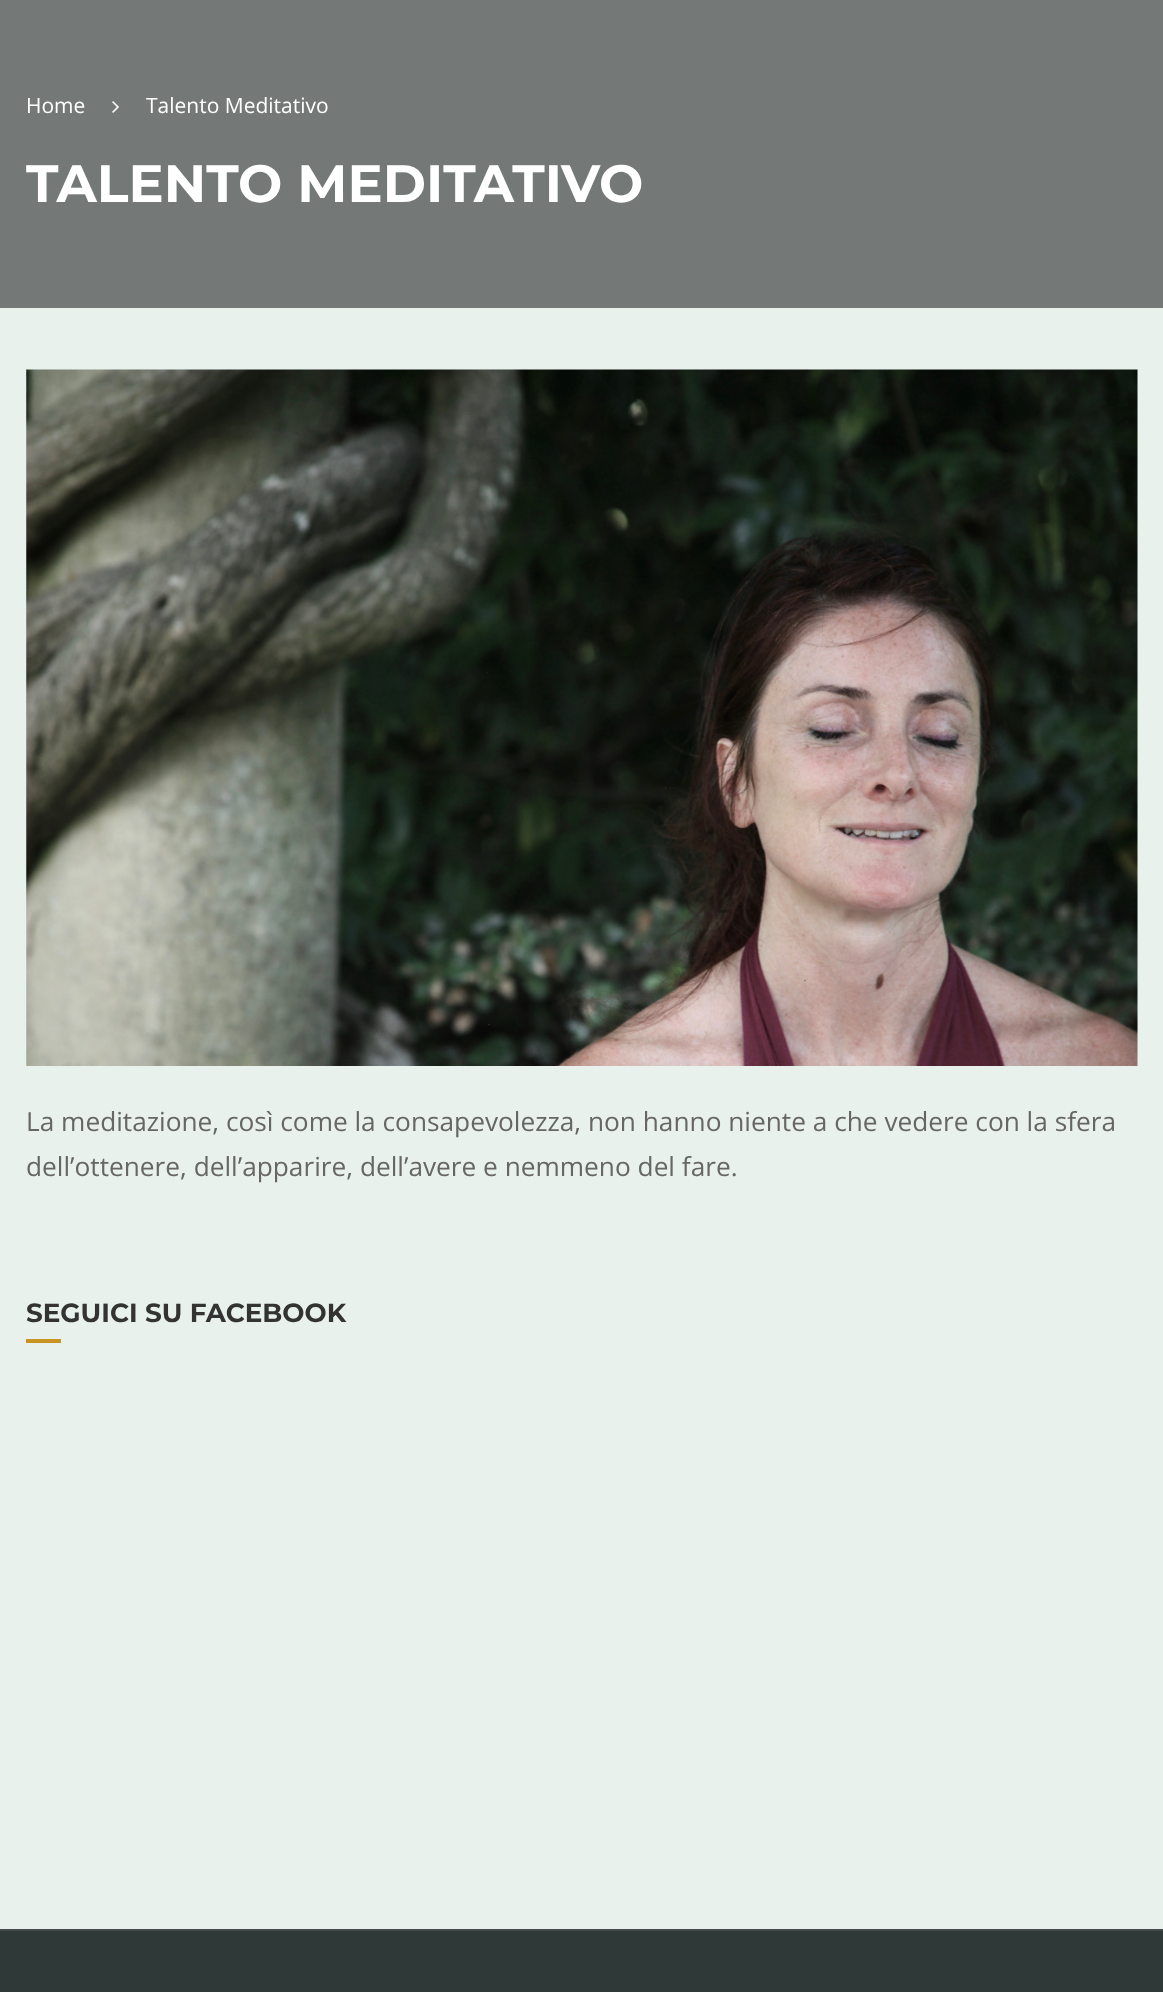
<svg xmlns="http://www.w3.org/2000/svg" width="1163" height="1992">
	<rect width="100%" height="100%" fill="#E8F1EC" />
	<rect x="0" y="0" width="1163" height="308" fill="#747876" />
	<text x="26" y="113" font-family="Open Sans" font-size="21" fill="#FFFFFF">Home</text>
	<image x="112" y="101" width="7" height="12" href="assets/img1.png" />
	<text x="146" y="113" font-family="Open Sans" font-size="21" fill="#FFFFFF">Talento Meditativo</text>
	<text x="26" y="202" font-family="Montserrat" font-size="52.5" font-weight="100" fill="#FFFFFF">TALENTO MEDITATIVO</text>
	<image x="26" y="369" width="1112" height="697" href="assets/img2.png" />
	<g font-family="Open Sans" font-size="26.25" fill="#666666">
		<text x="26" y="1131">La meditazione, così come la consapevolezza, non hanno niente a che vedere con la sfera</text>
		<text x="26" y="1176">dell’ottenere, dell’apparire, dell’avere e nemmeno del fare.</text>
	</g>
	<text x="26" y="1322" font-family="Montserrat" font-size="26.25" font-weight="100" fill="#333333">SEGUICI SU FACEBOOK</text>
	<rect x="26" y="1339" width="35" height="4" fill="#C99423" />
	<rect x="0" y="1931" width="1163" height="61" fill="#2F3937" />
	<rect x="0" y="1929" width="1163" height="2" fill="#444C4B" />
</svg>
